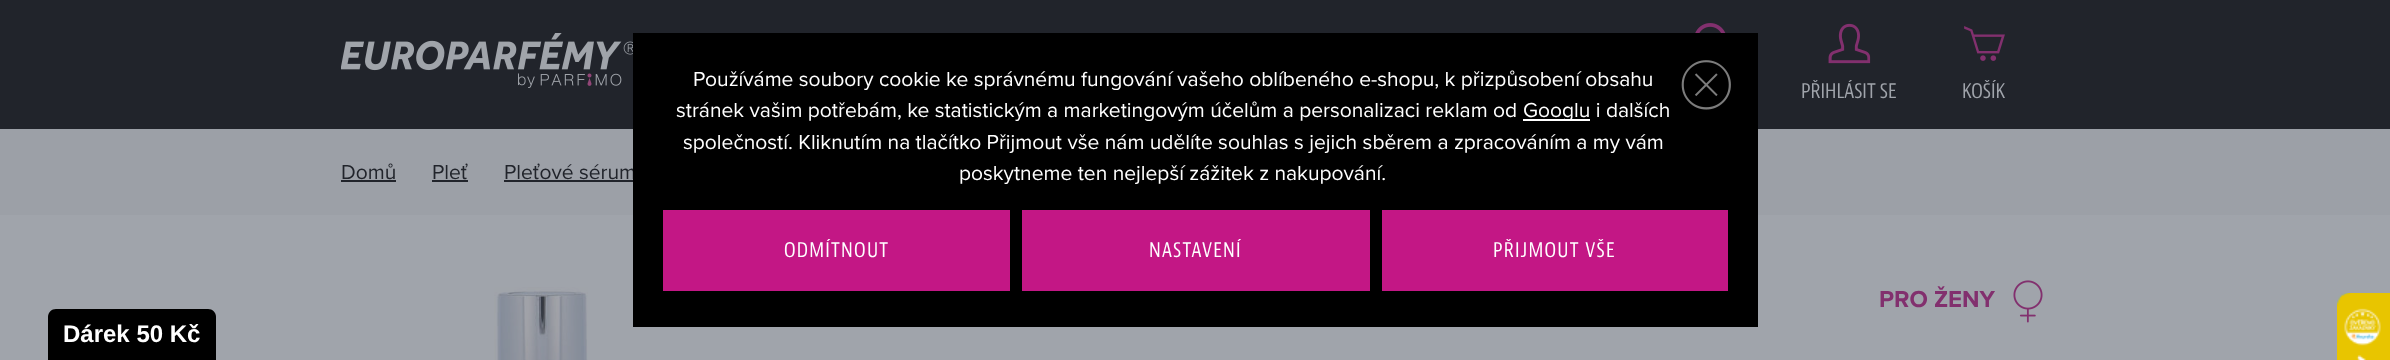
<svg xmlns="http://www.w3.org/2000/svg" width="2390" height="360">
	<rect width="100%" height="100%" fill="#A0A4AB" />
	<rect x="0" y="0" width="2390" height="129" fill="#21242B" />
	<rect x="0" y="129" width="2390" height="86" fill="#9CA0A7" />
	<text x="504" y="179" font-family="Proxima Nova" font-size="21" fill="#21242B">Pleťové sérum</text>
	<rect x="504" y="180" width="132" height="2" fill="#21242B" />
	<rect x="633" y="33" width="1125" height="294" fill="#000000" />
	<g font-family="Proxima Nova" font-size="21" fill="#FFFFFF">
		<text x="693" y="86">Používáme soubory cookie ke správnému fungování vašeho oblíbeného e-shopu, k přizpůsobení obsahu</text>
		<text x="676" y="117">stránek vašim potřebám, ke statistickým a marketingovým účelům a personalizaci reklam od</text>
	</g>
	<rect x="1523" y="119" width="67" height="2" fill="#FFFFFF" />
	<g font-family="Proxima Nova" font-size="21" fill="#FFFFFF">
		<text x="1523" y="117">Googlu i dalších</text>
		<text x="683" y="149">společností. Kliknutím na tlačítko Přijmout vše nám udělíte souhlas s jejich sběrem a zpracováním a my vám</text>
		<text x="959" y="180">poskytneme ten nejlepší zážitek z nakupování.</text>
	</g>
	<rect x="663" y="210" width="347" height="81" fill="#C31785" />
	<text x="784" y="257" font-family="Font" font-size="21" letter-spacing="1.25" fill="#FFFFFF">ODMÍTNOUT</text>
	<rect x="1022" y="210" width="348" height="81" fill="#C31785" />
	<text x="1149" y="257" font-family="Font" font-size="21" letter-spacing="1.25" fill="#FFFFFF">NASTAVENÍ</text>
	<rect x="1382" y="210" width="346" height="81" fill="#C31785" />
	<text x="1493" y="257" font-family="Font" font-size="21" letter-spacing="1.25" fill="#FFFFFF">PŘIJMOUT VŠE</text>
	<image x="1681" y="60" width="50" height="50" href="assets/img1.png" />
	<image x="341" y="33" width="292" height="55" href="assets/img2.png" />
	<image x="1695" y="23" width="31" height="10" href="assets/img3.png" />
	<image x="1828" y="23" width="43" height="41" href="assets/img4.png" />
	<text x="1801" y="98" font-family="Font" font-size="21" fill="#A0A4AB">PŘIHLÁSIT SE</text>
	<image x="1964" y="26" width="41" height="35" href="assets/img5.png" />
	<text x="1962" y="98" font-family="Font" font-size="21" fill="#A0A4AB">KOŠÍK</text>
	<text x="341" y="179" font-family="Proxima Nova" font-size="21" fill="#21242B">Domů</text>
	<rect x="341" y="180" width="55" height="2" fill="#21242B" />
	<text x="432" y="179" font-family="Proxima Nova" font-size="21" fill="#21242B">Pleť</text>
	<rect x="432" y="180" width="36" height="2" fill="#21242B" />
	<image x="494" y="287" width="94" height="73" href="assets/img6.png" />
	<text x="1879" y="307" font-family="Proxima Nova" font-size="24" font-weight="700" fill="#82306E">PRO ŽENY</text>
	<image x="2013" y="280" width="30" height="43" href="assets/img7.png" />
	<path d="M56 309H208C212.5 309 216 312.5 216 317V360H48V317C48 312.5 51.5 309 56 309Z" fill="#000000" />
	<text x="63" y="342" font-family="Liberation Sans" font-size="24" font-weight="700" fill="#FFFFFF">Dárek 50 Kč</text>
	<image x="2337" y="293" width="53" height="67" href="assets/img8.png" />
</svg>
